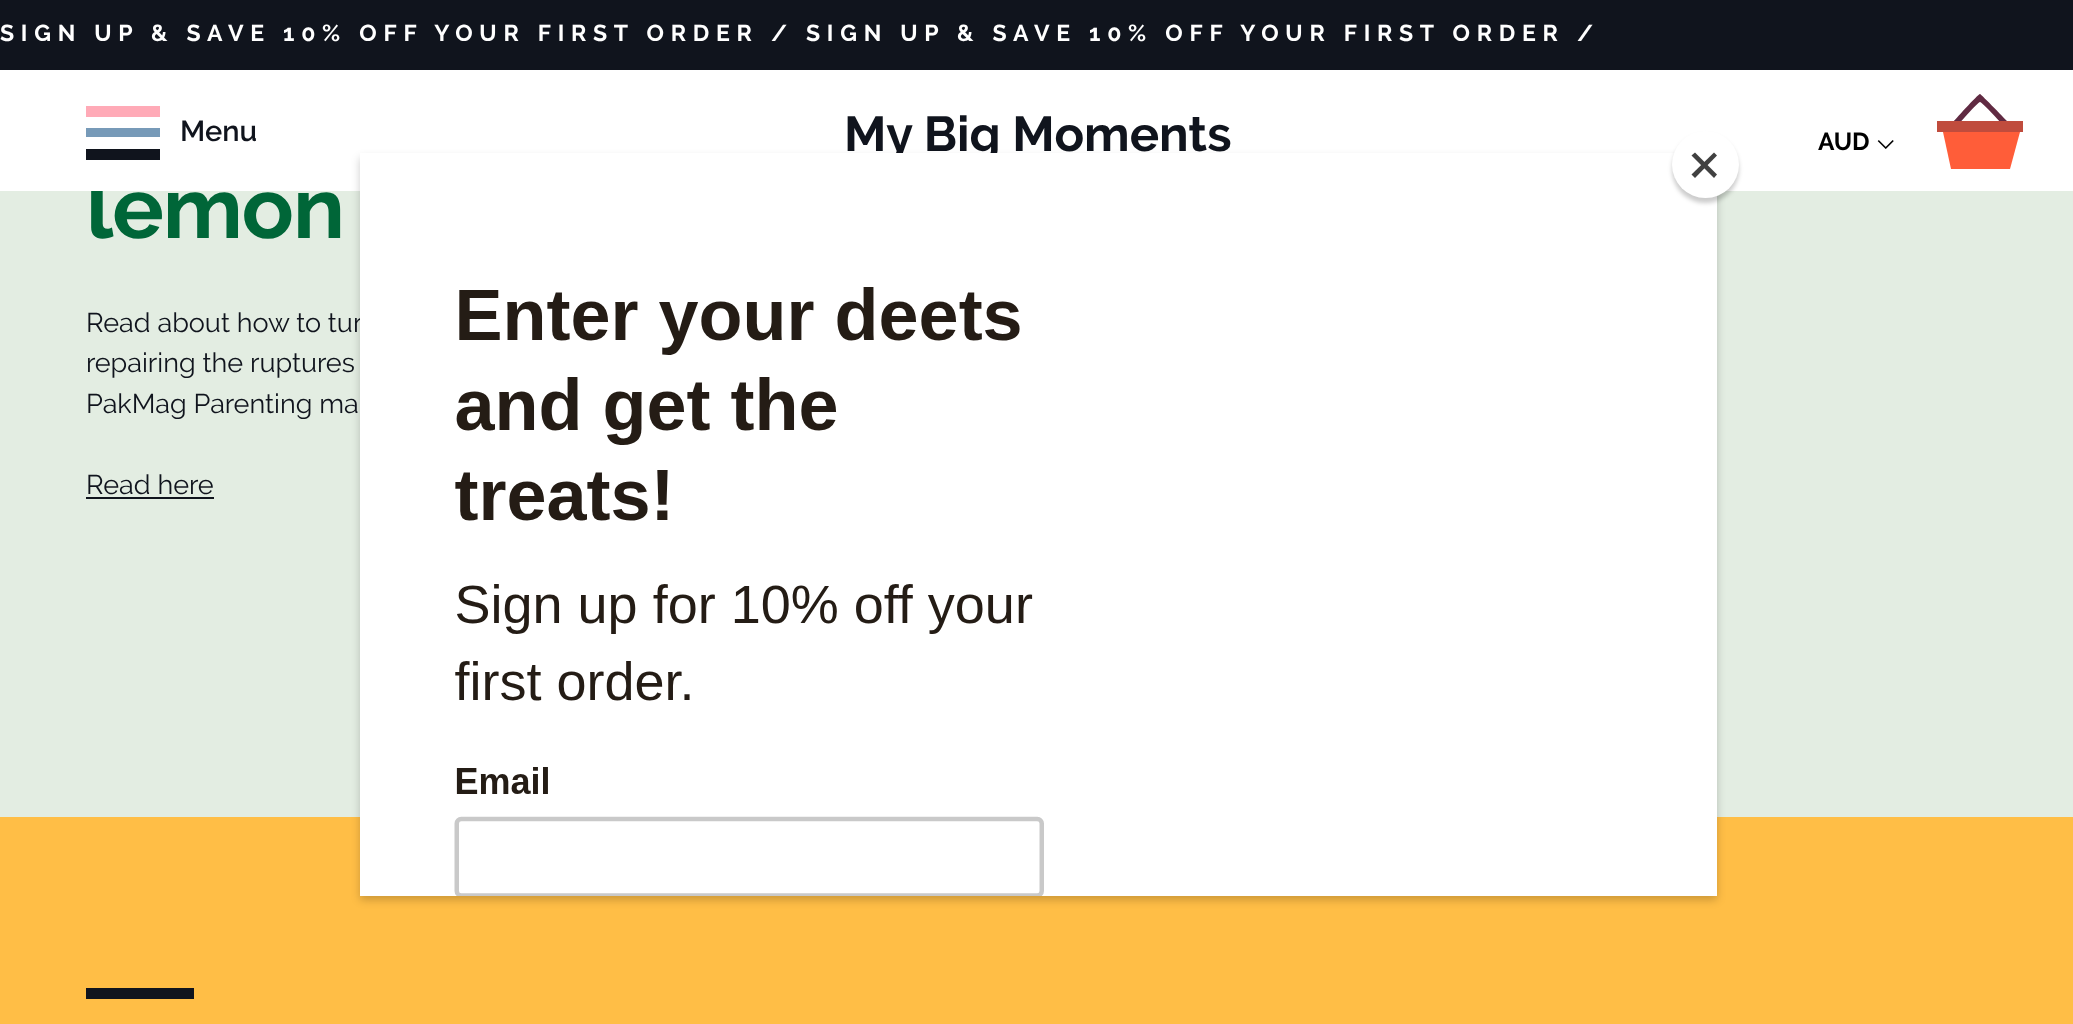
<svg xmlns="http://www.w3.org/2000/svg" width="2073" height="1024">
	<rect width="100%" height="100%" fill="#E3EDE2" />
	<text x="86" y="238" font-family="Raleway" font-size="86" font-weight="700" letter-spacing="-1" fill="#006638">lemon</text>
	<rect x="0" y="70" width="2073" height="121" fill="#FFFFFF" />
	<rect x="0" y="0" width="2073" height="70" fill="#10141D" />
	<g font-family="Raleway" font-size="23.05" font-weight="700" letter-spacing="6.75" fill="#FFFFFF">
		<text x="0" y="41">SIGN UP &amp; SAVE 10% OFF YOUR FIRST ORDER /</text>
		<text x="806" y="41">SIGN UP &amp; SAVE 10% OFF YOUR FIRST ORDER /</text>
	</g>
	<rect x="86" y="128" width="74" height="9" fill="#779AB8" />
	<rect x="86" y="106" width="74" height="11" fill="#FFAAB7" />
	<rect x="86" y="149" width="74" height="11" fill="#10141D" />
	<text x="180" y="141" font-family="Raleway" font-size="29" font-weight="600" fill="#10141D">Menu</text>
	<text x="844" y="151" font-family="Raleway" font-size="49" font-weight="700" fill="#10141D">My Big Moments</text>
	<image x="1877" y="140" width="17" height="9" href="assets/img1.png" />
	<text x="1818" y="150" font-family="Raleway" font-size="24.5" font-weight="700" fill="#000000">AUD</text>
	<path d="M1943 132L1951 169H2010L2020 132Z" fill="#FF5D39" />
	<path d="M2004 126C2004 126 1982 102 1980 102C1978 102 1957 126 1957 126L1953 122C1953 122 1978 94 1980 94C1981 94 2008 122 2008 122Z" fill="#602A42" />
	<rect x="1937" y="121" width="86" height="11" fill="#C04C3D" />
	<g font-family="Raleway" font-size="27" fill="#10141D">
		<text x="86" y="332">Read about how to tur</text>
		<text x="86" y="372">repairing the ruptures</text>
		<text x="86" y="413">PakMag Parenting ma</text>
		<text x="86" y="494">Read here</text>
	</g>
	<rect x="86" y="497" width="128" height="2" fill="#10141D" />
	<rect x="0" y="817" width="2073" height="207" fill="#FFBE46" />
	<rect x="86" y="988" width="108" height="11" fill="#10141D" />
	<rect x="360" y="158" width="1357" height="742" fill="#000000" fill-opacity="0.2" filter="blur(4.5px)" />
	<image x="360" y="153" width="1357" height="743" href="assets/img2.png" />
	<rect x="1672" y="135" width="67" height="68" rx="33.5" fill="#000000" fill-opacity="0.2" filter="blur(2px)" />
	<circle cx="1705.5" cy="164.5" r="33.5" fill="#FFFFFF" />
	<path d="M1714 152.5L1717 155.5L1695 178L1691.5 174.5Z" fill="#414141" />
	<path d="M1691.5 155.5L1695 152.5L1717 174.5L1714 178Z" fill="#414141" />
</svg>
